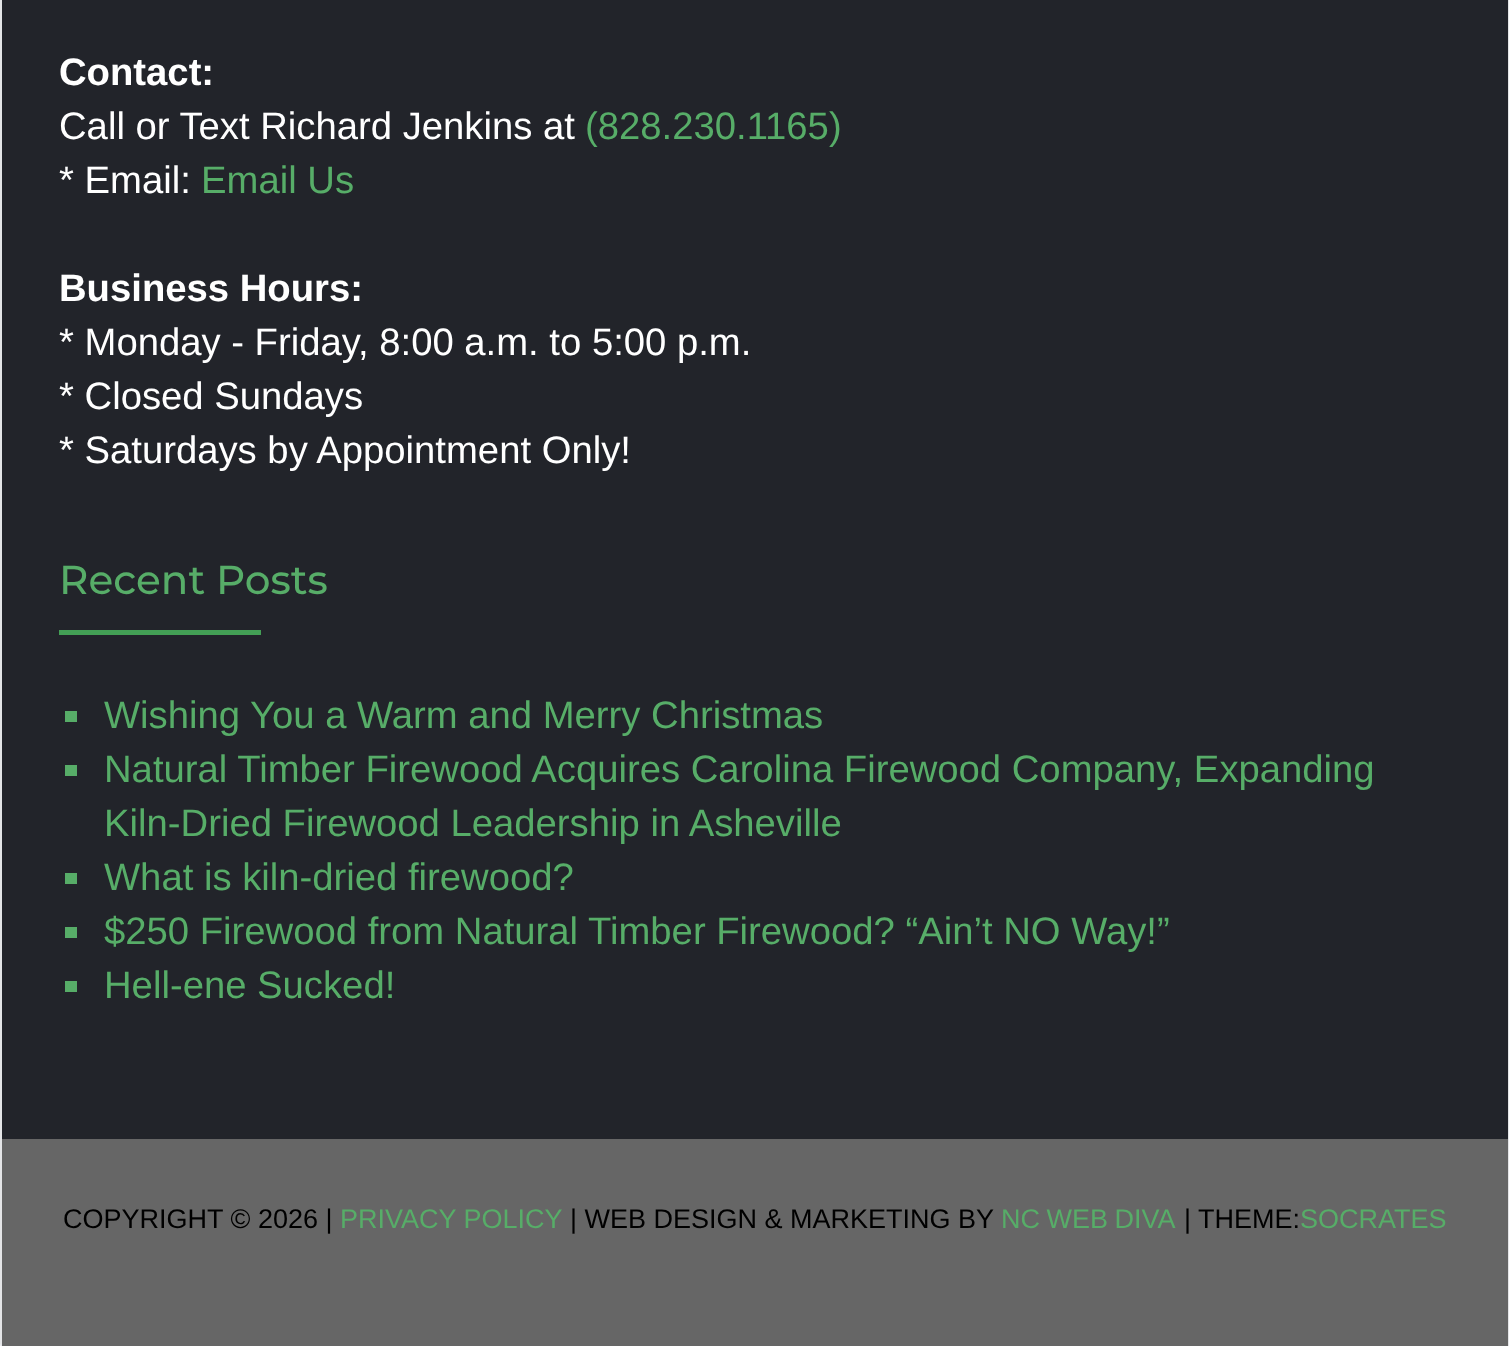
<svg xmlns="http://www.w3.org/2000/svg" width="1509" height="1346">
	<rect width="100%" height="100%" fill="#F1F3F6" />
	<rect x="1" y="-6" width="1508" height="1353" rx="4" fill="none" stroke="#E4E5E7" stroke-width="2" />
	<rect x="2" y="0" width="1506" height="1139" fill="#22242A" />
	<text x="59" y="85" font-family="Liberation Sans" font-size="38.25" font-weight="700" fill="#FFFFFF">Contact:</text>
	<text x="59" y="139" font-family="Liberation Sans" font-size="38.25" fill="#FFFFFF">Call or Text Richard Jenkins at</text>
	<text x="585" y="139" font-family="Liberation Sans" font-size="38.25" fill="#57AD68">(828.230.1165)</text>
	<text x="59" y="193" font-family="Liberation Sans" font-size="38.25" fill="#FFFFFF">* Email:</text>
	<text x="201" y="193" font-family="Liberation Sans" font-size="38.25" fill="#57AD68">Email Us</text>
	<text x="59" y="301" font-family="Liberation Sans" font-size="38.25" font-weight="700" fill="#FFFFFF">Business Hours:</text>
	<g font-family="Liberation Sans" font-size="38.25" fill="#FFFFFF">
		<text x="59" y="355">* Monday - Friday, 8:00 a.m. to 5:00 p.m.</text>
		<text x="59" y="409">* Closed Sundays</text>
		<text x="59" y="463">* Saturdays by Appointment Only!</text>
	</g>
	<text x="59" y="594" font-family="Montserrat" font-size="40.5" font-weight="500" fill="#57AD68">Recent Posts</text>
	<rect x="59" y="630" width="202" height="5" fill="#439F55" />
	<rect x="65" y="711" width="12" height="11" fill="#57AD68" />
	<text x="104" y="728" font-family="Liberation Sans" font-size="38.25" fill="#57AD68">Wishing You a Warm and Merry Christmas</text>
	<rect x="65" y="765" width="12" height="11" fill="#57AD68" />
	<g font-family="Liberation Sans" font-size="38.25" fill="#57AD68">
		<text x="104" y="782">Natural Timber Firewood Acquires Carolina Firewood Company, Expanding</text>
		<text x="104" y="836">Kiln-Dried Firewood Leadership in Asheville</text>
	</g>
	<rect x="65" y="873" width="12" height="11" fill="#57AD68" />
	<text x="104" y="890" font-family="Liberation Sans" font-size="38.25" fill="#57AD68">What is kiln-dried firewood?</text>
	<rect x="65" y="927" width="12" height="11" fill="#57AD68" />
	<text x="104" y="944" font-family="Liberation Sans" font-size="38.25" fill="#57AD68">$250 Firewood from Natural Timber Firewood? “Ain’t NO Way!”</text>
	<rect x="65" y="981" width="12" height="11" fill="#57AD68" />
	<text x="104" y="998" font-family="Liberation Sans" font-size="38.25" fill="#57AD68">Hell-ene Sucked!</text>
	<rect x="2" y="1139" width="1506" height="207" fill="#666666" />
	<text x="63" y="1228" font-family="Liberation Sans" font-size="27" fill="#000000">COPYRIGHT © 2026 |</text>
	<text x="340" y="1228" font-family="Liberation Sans" font-size="27" fill="#57AD68">PRIVACY POLICY</text>
	<text x="570" y="1228" font-family="Liberation Sans" font-size="27" fill="#000000">| WEB DESIGN &amp; MARKETING BY</text>
	<text x="1001" y="1228" word-spacing="-1" font-family="Liberation Sans" font-size="27" fill="#57AD68">NC WEB DIVA</text>
	<text x="1184" y="1228" font-family="Liberation Sans" font-size="27" fill="#000000">| THEME:</text>
	<text x="1300" y="1228" font-family="Liberation Sans" font-size="27" fill="#57AD68">SOCRATES</text>
</svg>
